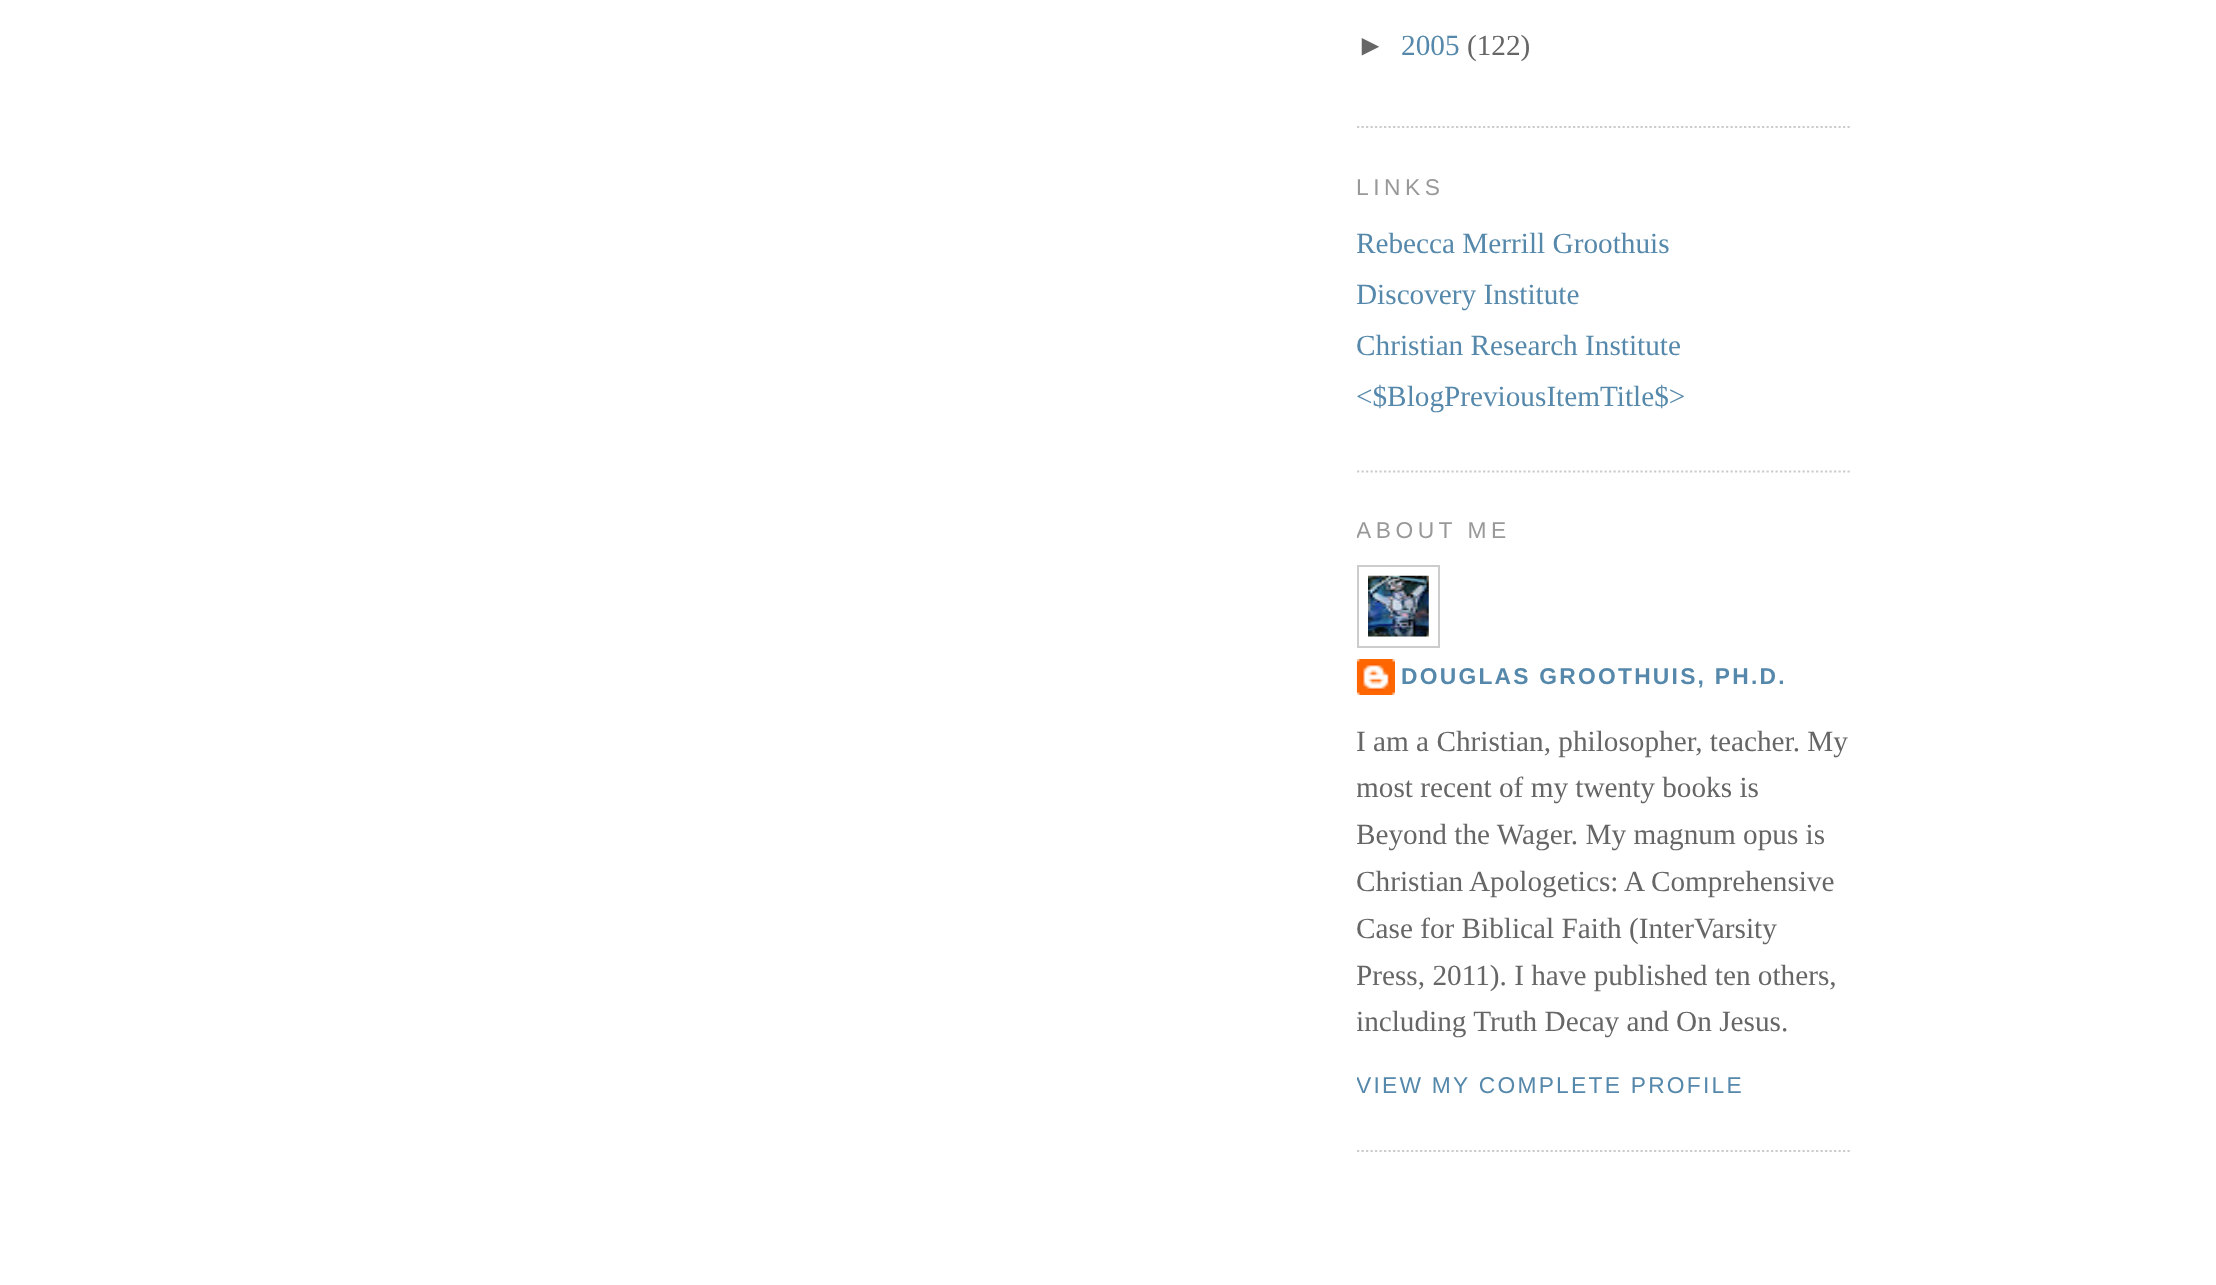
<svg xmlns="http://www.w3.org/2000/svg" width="2216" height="1285">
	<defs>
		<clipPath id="clip1"><rect x="1357" y="0" width="495" height="1195" /></clipPath>
	</defs>
	<rect width="100%" height="100%" fill="#FFFFFF" />
	<path d="M1357 127H1852" fill="none" stroke="#CCCCCC" stroke-width="2.2" stroke-dasharray="2.25 2.25" />
	<text x="1356" y="55" font-family="Liberation Sans" font-size="29.25" fill="#666666">►</text>
	<text x="1401" y="55" font-family="Liberation Serif" font-size="29.25" fill="#5588AA">2005</text>
	<text x="1467" y="55" font-family="Liberation Serif" font-size="29.25" fill="#666666">(122)</text>
	<path d="M1357 471.5H1852" fill="none" stroke="#CCCCCC" stroke-width="2.2" stroke-dasharray="2.25 2.25" />
	<text x="1356" y="195" font-family="Liberation Sans" font-size="22.8" letter-spacing="4.5" fill="#999999">LINKS</text>
	<g clip-path="url(#clip1)">
		<g font-family="Liberation Serif" font-size="29.25" fill="#5588AA">
			<text x="1356" y="253">Rebecca Merrill Groothuis</text>
			<text x="1356" y="304">Discovery Institute</text>
			<text x="1356" y="355">Christian Research Institute</text>
		</g>
	</g>
	<text x="1356" y="406" font-family="Liberation Serif" font-size="29.25" fill="#5588AA">&lt;$BlogPreviousItemTitle$&gt;</text>
	<path d="M1357 1151H1852" fill="none" stroke="#CCCCCC" stroke-width="2.2" stroke-dasharray="2.25 2.25" />
	<g clip-path="url(#clip1)">
		<text x="1356" y="538" font-family="Liberation Sans" font-size="22.8" letter-spacing="4.5" fill="#999999">ABOUT ME</text>
	</g>
	<rect x="1358" y="566" width="81" height="81" fill="none" stroke="#CCCCCC" stroke-width="2" />
	<image x="1368" y="575" width="61" height="62" href="assets/img1.png" />
	<image x="1356" y="659" width="39" height="36" href="assets/img2.png" />
	<text x="1401" y="684" font-family="Liberation Sans" font-size="22.8" font-weight="700" letter-spacing="2.25" fill="#5588AA">DOUGLAS GROOTHUIS, PH.D.</text>
	<text x="1356" y="751" font-family="Liberation Serif" font-size="29.25" fill="#666666">I am a Christian, philosopher, teacher. My</text>
	<g clip-path="url(#clip1)">
		<g font-family="Liberation Serif" font-size="29.25" fill="#666666">
			<text x="1356" y="797">most recent of my twenty books is</text>
			<text x="1356" y="844">Beyond the Wager. My magnum opus is</text>
			<text x="1356" y="891">Christian Apologetics: A Comprehensive</text>
			<text x="1356" y="938">Case for Biblical Faith (InterVarsity</text>
			<text x="1356" y="985">Press, 2011). I have published ten others,</text>
			<text x="1356" y="1031">including Truth Decay and On Jesus.</text>
		</g>
		<text x="1356" y="1093" font-family="Liberation Sans" font-size="22.8" letter-spacing="2.25" fill="#5588AA">VIEW MY COMPLETE PROFILE</text>
	</g>
</svg>
